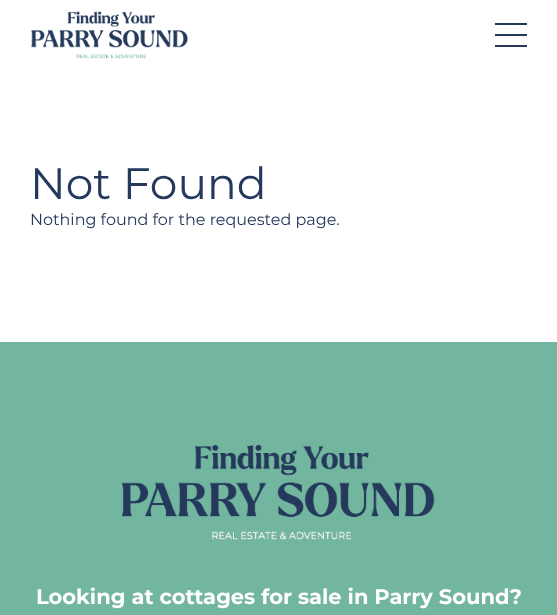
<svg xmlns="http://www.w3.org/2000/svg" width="557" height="615">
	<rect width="100%" height="100%" fill="#FFFFFF" />
	<image x="31" y="11" width="157" height="48" href="assets/img1.png" />
	<rect x="495" y="23" width="32" height="2" fill="#24395B" />
	<rect x="495" y="34" width="32" height="2" fill="#24395B" />
	<rect x="495" y="45" width="32" height="2" fill="#24395B" />
	<text x="30" y="199" font-family="Montserrat" font-size="44" fill="#24395B">Not Found</text>
	<text x="30" y="225" font-family="Montserrat" font-size="16" fill="#24395B">Nothing found for the requested page.</text>
	<rect x="0" y="342" width="557" height="273" fill="#73B69F" />
	<image x="121" y="444" width="314" height="96" href="assets/img2.png" />
	<text x="36" y="604" font-family="Montserrat" font-size="21" font-weight="700" fill="#FFFFFF">Looking at cottages for sale in Parry Sound?</text>
</svg>
